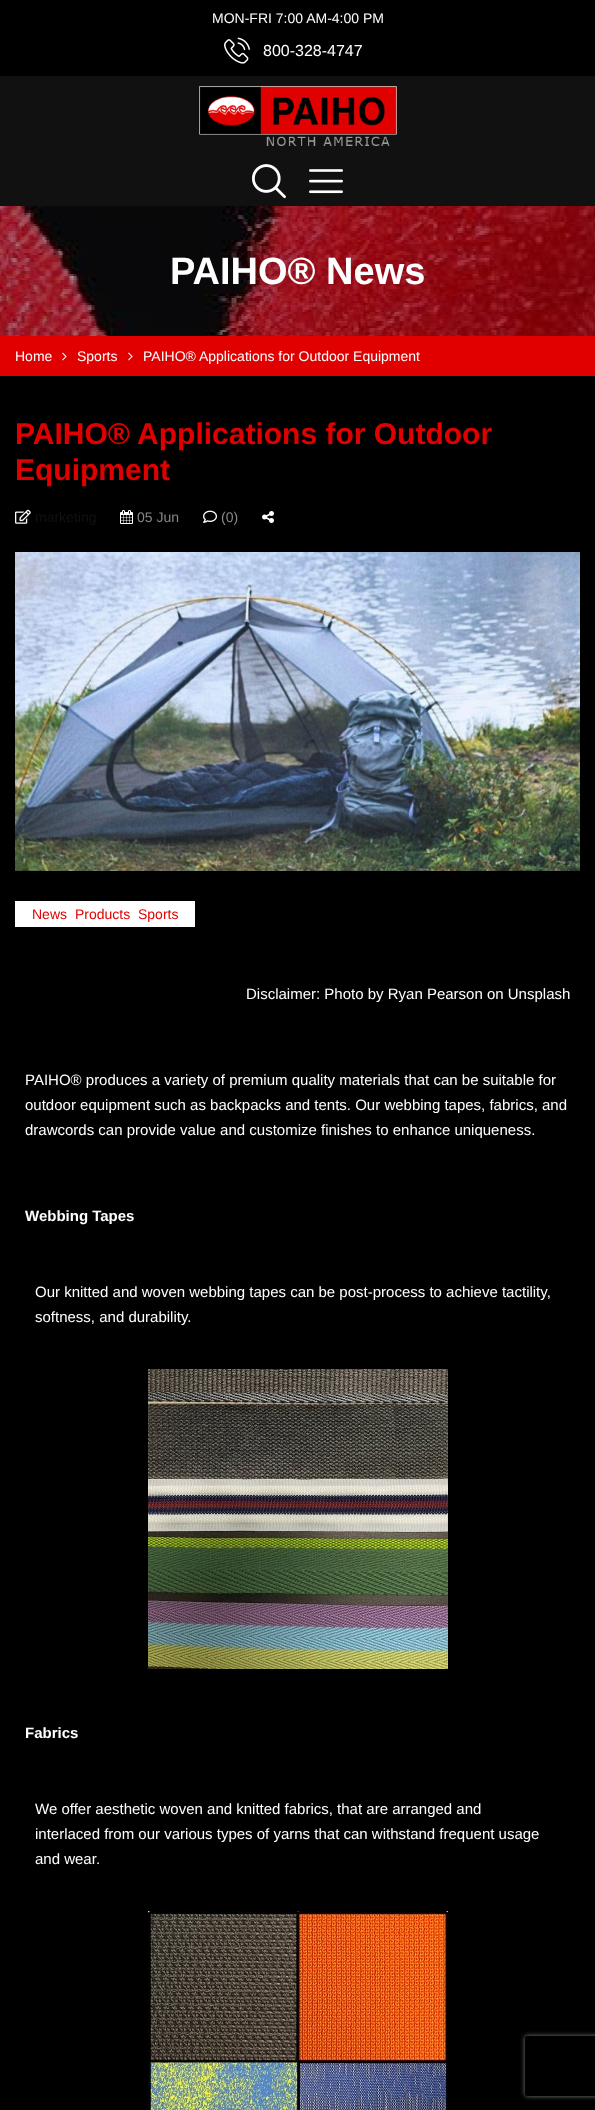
<svg xmlns="http://www.w3.org/2000/svg" width="595" height="2110">
	<defs>
		<clipPath id="clip1"><path d="M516 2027H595V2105H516ZM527 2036H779C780 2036 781 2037 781 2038V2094C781 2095 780 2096 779 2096H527C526 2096 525 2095 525 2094V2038C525 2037 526 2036 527 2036Z" clip-rule="evenodd" /></clipPath>
	</defs>
	<rect width="100%" height="100%" fill="#000000" />
	<text x="212" y="23" font-family="Liberation Sans" font-size="14" fill="#FFFFFF">MON-FRI 7:00 AM-4:00 PM</text>
	<image x="224" y="37" width="26" height="27" href="assets/img1.png" />
	<text x="263" y="56" font-family="Liberation Sans" font-size="16" fill="#FFFFFF">800-328-4747</text>
	<rect x="0" y="76" width="595" height="130" fill="#111111" />
	<image x="199" y="86" width="198" height="60" href="assets/img2.png" />
	<image x="252" y="164" width="34" height="35" href="assets/img3.png" />
	<image x="309" y="169" width="34" height="25" href="assets/img4.png" />
	<image x="0" y="206" width="595" height="130" href="assets/img5.png" />
	<text x="170" y="284" font-family="Liberation Sans" font-size="38" font-weight="700" fill="#FFFFFF">PAIHO® News</text>
	<rect x="0" y="336" width="595" height="40" fill="#E00000" />
	<text x="15" y="361" font-family="Liberation Sans" font-size="14" fill="#FFFFFF">Home</text>
	<image x="62" y="352" width="5" height="9" href="assets/img6.png" />
	<text x="77" y="361" font-family="Liberation Sans" font-size="14" fill="#FFFFFF">Sports</text>
	<image x="128" y="352" width="5" height="9" href="assets/img6.png" />
	<text x="143" y="361" font-family="Liberation Sans" font-size="14" fill="#FFFFFF">PAIHO® Applications for Outdoor Equipment</text>
	<g font-family="Liberation Sans" font-size="30" font-weight="700" fill="#E00000">
		<text x="15" y="444">PAIHO® Applications for Outdoor</text>
		<text x="15" y="480">Equipment</text>
	</g>
	<image x="15" y="509" width="16" height="15" href="assets/img7.png" />
	<text x="35" y="522" font-family="Liberation Sans" font-size="14" fill="#111111">marketing</text>
	<image x="120" y="510" width="13" height="14" href="assets/img8.png" />
	<text x="137" y="522" font-family="Liberation Sans" font-size="14" fill="#888888">05 Jun</text>
	<image x="203" y="510" width="14" height="13" href="assets/img9.png" />
	<text x="221" y="522" font-family="Liberation Sans" font-size="14" fill="#888888">(0)</text>
	<image x="262" y="511" width="12" height="12" href="assets/img10.png" />
	<image x="15" y="552" width="565" height="319" href="assets/img11.png" />
	<rect x="15" y="901" width="180" height="26" fill="#FFFFFF" />
	<g font-family="Liberation Sans" font-size="14" fill="#E00000">
		<text x="32" y="919">News</text>
		<text x="75" y="919">Products</text>
		<text x="138" y="919">Sports</text>
	</g>
	<g font-family="Liberation Sans" font-size="15" fill="#FFFFFF">
		<text x="246" y="999">Disclaimer: Photo by Ryan Pearson on Unsplash</text>
		<text x="25" y="1085">PAIHO® produces a variety of premium quality materials that can be suitable for</text>
		<text x="25" y="1110">outdoor equipment such as backpacks and tents. Our webbing tapes, fabrics, and</text>
		<text x="25" y="1135">drawcords can provide value and customize finishes to enhance uniqueness.</text>
	</g>
	<text x="25" y="1221" font-family="Liberation Sans" font-size="15" font-weight="700" fill="#FFFFFF">Webbing Tapes</text>
	<g font-family="Liberation Sans" font-size="15" fill="#FFFFFF">
		<text x="35" y="1297">Our knitted and woven webbing tapes can be post-process to achieve tactility,</text>
		<text x="35" y="1322">softness, and durability.</text>
	</g>
	<image x="148" y="1369" width="300" height="300" href="assets/img12.png" />
	<text x="25" y="1738" font-family="Liberation Sans" font-size="15" font-weight="700" fill="#FFFFFF">Fabrics</text>
	<g font-family="Liberation Sans" font-size="15" fill="#FFFFFF">
		<text x="35" y="1814">We offer aesthetic woven and knitted fabrics, that are arranged and</text>
		<text x="35" y="1839">interlaced from our various types of yarns that can withstand frequent usage</text>
		<text x="35" y="1864">and wear.</text>
	</g>
	<image x="148" y="1911" width="300" height="199" href="assets/img13.png" />
	<g clip-path="url(#clip1)">
		<rect x="525" y="2036" width="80" height="60" rx="2" fill="#808080" filter="blur(2.5px)" />
	</g>
</svg>
